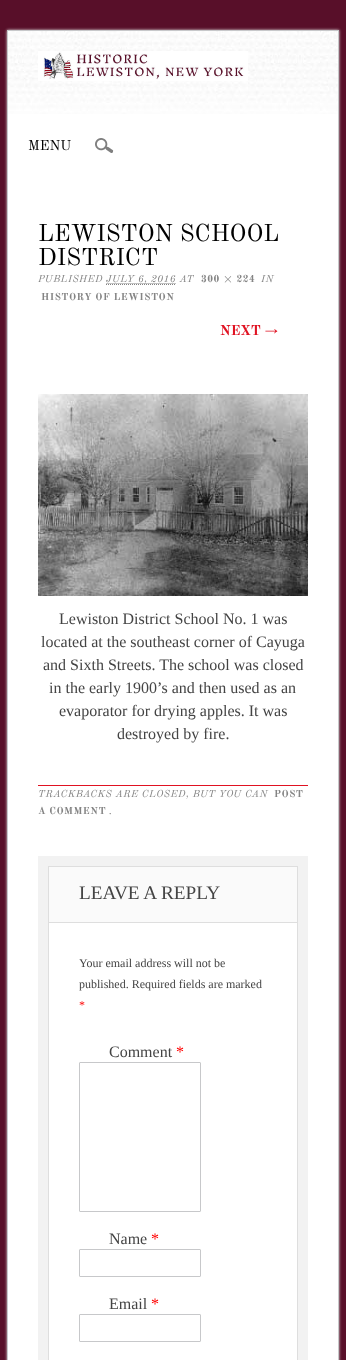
<svg xmlns="http://www.w3.org/2000/svg" width="346" height="1360">
	<rect width="100%" height="100%" fill="#580F29" />
	<rect x="7" y="30" width="332" height="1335" fill="#DDDDDD" filter="blur(1.5px)" />
	<rect x="8" y="114" width="330" height="1246" fill="#FFFFFF" />
	<rect x="7.5" y="30.5" width="331" height="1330" fill="none" stroke="#C7C8CA" />
	<image x="8" y="31" width="330" height="83" href="assets/img1.png" />
	<image x="38" y="51" width="210" height="30" href="assets/img2.png" />
	<text x="28" y="150" font-family="Old Standard TT" font-size="14" fill="#000000">MENU</text>
	<image x="95" y="138" width="19" height="15" href="assets/img3.png" />
	<g font-family="Old Standard TT" font-size="24" fill="#000000">
		<text x="38" y="241">LEWISTON SCHOOL</text>
		<text x="38" y="265">DISTRICT</text>
	</g>
	<text x="38" y="282" font-family="Old Standard TT" font-size="10" font-style="italic" letter-spacing="0.5" fill="#848484">PUBLISHED</text>
	<path d="M106.5 283.5H176.5" fill="none" stroke="#848484" stroke-dasharray="1 1" />
	<text x="106" y="282" font-family="Old Standard TT" font-size="10" font-style="italic" letter-spacing="0.5" fill="#848484">JULY 6, 2016 AT</text>
	<path d="M106 284.5H176" fill="none" stroke="#848484" stroke-dasharray="1 1" />
	<text x="201" y="282" font-family="Old Standard TT" font-size="10" font-weight="700" letter-spacing="0.5" fill="#848484">300 × 224</text>
	<text x="261" y="282" font-family="Old Standard TT" font-size="10" font-style="italic" letter-spacing="0.5" fill="#848484">IN</text>
	<text x="41" y="300" font-family="Old Standard TT" font-size="10" font-weight="700" letter-spacing="0.5" fill="#848484">HISTORY OF LEWISTON</text>
	<text x="220" y="335" font-family="Old Standard TT" font-size="14" font-weight="700" fill="#E01222">NEXT →</text>
	<image x="38" y="394" width="270" height="202" href="assets/img4.png" />
	<g font-family="Liberation Serif" font-size="16" fill="#444444">
		<text x="59" y="624">Lewiston District School No. 1 was</text>
		<text x="41" y="647">located at the southeast corner of Cayuga</text>
		<text x="43" y="670">and Sixth Streets. The school was closed</text>
		<text x="49" y="693">in the early 1900’s and then used as an</text>
		<text x="59" y="716">evaporator for drying apples. It was</text>
		<text x="117" y="739">destroyed by fire.</text>
	</g>
	<rect x="38" y="785" width="270" height="1" fill="#E01222" />
	<text x="38" y="797" font-family="Old Standard TT" font-size="10" font-style="italic" letter-spacing="0.5" fill="#848484">TRACKBACKS ARE CLOSED, BUT YOU CAN</text>
	<g font-family="Old Standard TT" font-size="10" font-weight="700" letter-spacing="0.5" fill="#848484">
		<text x="274" y="797">POST</text>
		<text x="38" y="814">A COMMENT</text>
	</g>
	<text x="109" y="814" font-family="Old Standard TT" font-size="10" font-style="italic" letter-spacing="0.5" fill="#848484">.</text>
	<rect x="38" y="856" width="270" height="504" fill="#F2F2F2" />
	<rect x="49" y="867" width="248" height="55" fill="#FAFAFA" />
	<rect x="48" y="866" width="250" height="1" fill="#DEDEDE" />
	<rect x="297" y="866" width="1" height="56" fill="#DEDEDE" />
	<rect x="48" y="866" width="1" height="56" fill="#DEDEDE" />
	<text x="79" y="899" font-family="Liberation Serif" font-size="19.25" fill="#444444">LEAVE A REPLY</text>
	<rect x="48.5" y="922.5" width="249" height="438" fill="#FFFFFF" stroke="#DEDEDE" />
	<g font-family="Liberation Serif" font-size="12" fill="#444444">
		<text x="79" y="967">Your email address will not be</text>
		<text x="79" y="988">published. Required fields are marked</text>
	</g>
	<text x="79" y="1009" font-family="Liberation Serif" font-size="12" fill="#FF0000">*</text>
	<text x="109" y="1057" font-family="Liberation Serif" font-size="16" fill="#444444">Comment</text>
	<text x="176" y="1057" font-family="Liberation Serif" font-size="16" fill="#FF0000">*</text>
	<rect x="79.5" y="1062.5" width="121" height="149" rx="0.5" fill="none" stroke="#C7C8CA" />
	<text x="109" y="1244" font-family="Liberation Serif" font-size="16" fill="#444444">Name</text>
	<text x="151" y="1244" font-family="Liberation Serif" font-size="16" fill="#FF0000">*</text>
	<rect x="79.5" y="1249.5" width="121" height="27" rx="0.5" fill="none" stroke="#C7C8CA" />
	<text x="109" y="1309" font-family="Liberation Serif" font-size="16" fill="#444444">Email</text>
	<text x="151" y="1309" font-family="Liberation Serif" font-size="16" fill="#FF0000">*</text>
	<rect x="79.5" y="1314.5" width="121" height="27" rx="0.5" fill="none" stroke="#C7C8CA" />
</svg>
